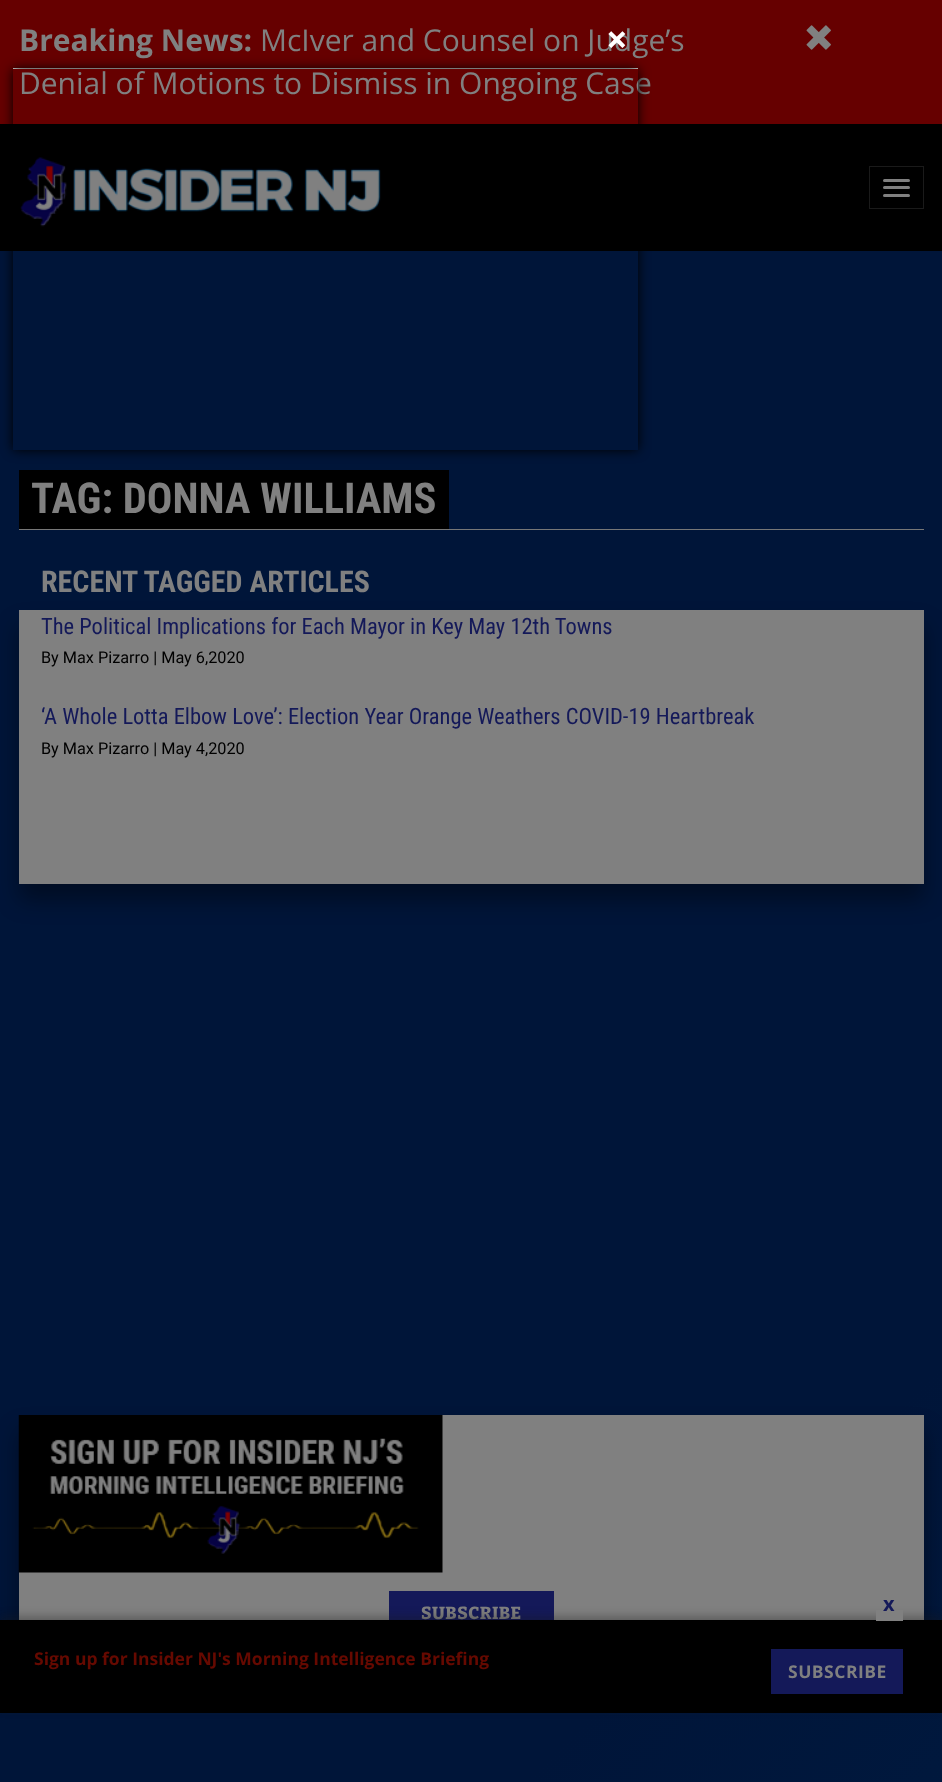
<svg xmlns="http://www.w3.org/2000/svg" width="942" height="1782">
	<defs>
		<linearGradient id="g1" gradientUnits="userSpaceOnUse" x1="-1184" y1="1435" x2="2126" y2="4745"><stop offset="0.31" stop-color="#001539" /><stop offset="1" stop-color="#003767" /></linearGradient>
		<clipPath id="clip1"><path d="M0 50H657V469H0ZM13 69H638V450H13Z" clip-rule="evenodd" /></clipPath>
	</defs>
	<rect width="100%" height="100%" fill="#660000" />
	<text x="19" y="51" font-family="Open Sans" font-size="30" font-weight="700" fill="#808080">Breaking News:</text>
	<g font-family="Open Sans" font-size="30" fill="#808080">
		<text x="260" y="51">McIver and Counsel on Judge’s</text>
		<text x="19" y="94">Denial of Motions to Dismiss in Ongoing Case</text>
	</g>
	<image x="806" y="25" width="25" height="25" href="assets/img1.png" />
	<rect x="0" y="124" width="942" height="127" fill="#000000" />
	<rect x="13" y="68" width="625" height="1" fill="#E5E5E5" />
	<text x="606" y="53" font-family="Open Sans" font-size="38" font-weight="700" fill="#FFFFFF">×</text>
	<image x="20" y="157" width="361" height="70" href="assets/img2.png" />
	<rect x="0" y="251" width="942" height="1531" fill="url(#g1)" />
	<g clip-path="url(#clip1)">
		<rect x="13" y="69" width="625" height="381" fill="#000000" filter="blur(6px)" />
	</g>
	<rect x="869.5" y="166.5" width="54" height="42" fill="none" stroke="#1A1A1A" />
	<rect x="883" y="179" width="27" height="3" rx="1.5" fill="#808080" />
	<rect x="883" y="186" width="27" height="3" rx="1.5" fill="#808080" />
	<rect x="883" y="194" width="27" height="3" rx="1.5" fill="#808080" />
	<rect x="19" y="529" width="905" height="1" fill="#777777" />
	<rect x="19" y="470" width="430" height="59" fill="#000000" />
	<text x="31" y="513" font-family="Roboto Condensed" font-size="42.5" font-weight="700" fill="#808080">TAG: DONNA WILLIAMS</text>
	<rect x="19" y="626" width="905" height="274" fill="#000000" fill-opacity="0.38" filter="blur(11px)" />
	<text x="41" y="592" font-family="Roboto Condensed" font-size="30" font-weight="700" fill="#808080">RECENT TAGGED ARTICLES</text>
	<rect x="19" y="610" width="905" height="274" fill="#808080" />
	<text x="41" y="634" font-family="Roboto Condensed" font-size="22.5" fill="#141959">The Political Implications for Each Mayor in Key May 12th Towns</text>
	<text x="41" y="663" font-family="Roboto" font-size="16.25" fill="#000000">By Max Pizarro | May 6,2020</text>
	<text x="41" y="724" font-family="Roboto Condensed" font-size="22.5" fill="#141959">‘A Whole Lotta Elbow Love’: Election Year Orange Weathers COVID-19 Heartbreak</text>
	<text x="41" y="754" font-family="Roboto" font-size="16.25" fill="#000000">By Max Pizarro | May 4,2020</text>
	<rect x="19" y="1431" width="905" height="243" fill="#000000" fill-opacity="0.38" filter="blur(11px)" />
	<rect x="19" y="1415" width="905" height="205" fill="#808080" />
	<image x="18" y="1415" width="425" height="158" href="assets/img3.png" />
	<rect x="389" y="1591" width="165" height="29" fill="#141959" />
	<text x="421" y="1619" font-family="Bitter" font-size="17.5" font-weight="800" letter-spacing="0.5" fill="#808080">SUBSCRIBE</text>
	<rect x="0" y="1616" width="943" height="93" fill="#191919" fill-opacity="0.32" filter="blur(4.5px)" />
	<rect x="0" y="1620" width="942" height="93" fill="#000000" />
	<text x="34" y="1665" font-family="Open Sans" font-size="17.5" font-weight="700" fill="#660900">Sign up for Insider NJ's Morning Intelligence Briefing</text>
	<rect x="876" y="1610" width="27" height="11" fill="#808080" />
	<text x="883" y="1611" font-family="Open Sans" font-size="20" font-weight="700" fill="#141959">x</text>
	<rect x="771" y="1649" width="132" height="45" fill="#141959" />
	<text x="788" y="1678" font-family="Open Sans" font-size="17.5" font-weight="700" letter-spacing="0.5" fill="#808080">SUBSCRIBE</text>
</svg>
